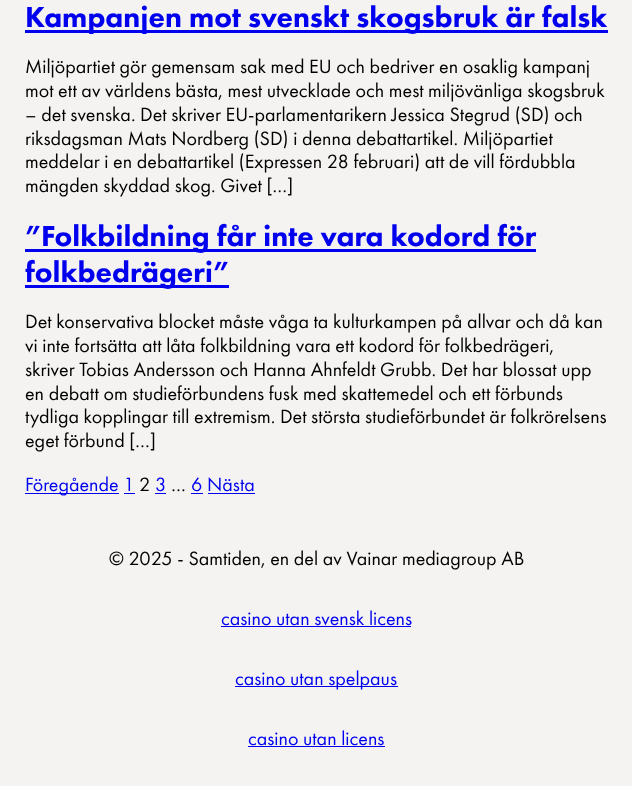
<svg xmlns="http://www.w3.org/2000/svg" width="632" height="786">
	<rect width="100%" height="100%" fill="#F4F3F2" />
	<rect x="25" y="30" width="583" height="3" fill="#0000EE" />
	<text x="25" y="27" font-family="Futura PT" font-size="30" font-weight="900" fill="#0000EE">Kampanjen mot svenskt skogsbruk är falsk</text>
	<g font-family="Futura PT" font-size="20" fill="#000000">
		<text x="25" y="73">Miljöpartiet gör gemensam sak med EU och bedriver en osaklig kampanj</text>
		<text x="25" y="97">mot ett av världens bästa, mest utvecklade och mest miljövänliga skogsbruk</text>
		<text x="25" y="121">– det svenska. Det skriver EU-parlamentarikern Jessica Stegrud (SD) och</text>
		<text x="25" y="145">riksdagsman Mats Nordberg (SD) i denna debattartikel. Miljöpartiet</text>
		<text x="25" y="168">meddelar i en debattartikel (Expressen 28 februari) att de vill fördubbla</text>
		<text x="25" y="192">mängden skyddad skog. Givet […]</text>
	</g>
	<rect x="25" y="249" width="511" height="3" fill="#0000EE" />
	<text x="25" y="246" font-family="Futura PT" font-size="30" font-weight="900" fill="#0000EE">”Folkbildning får inte vara kodord för</text>
	<rect x="25" y="285" width="204" height="3" fill="#0000EE" />
	<text x="25" y="282" font-family="Futura PT" font-size="30" font-weight="900" fill="#0000EE">folkbedrägeri”</text>
	<g font-family="Futura PT" font-size="20" fill="#000000">
		<text x="25" y="328">Det konservativa blocket måste våga ta kulturkampen på allvar och då kan</text>
		<text x="25" y="352">vi inte fortsätta att låta folkbildning vara ett kodord för folkbedrägeri,</text>
		<text x="25" y="376">skriver Tobias Andersson och Hanna Ahnfeldt Grubb. Det har blossat upp</text>
		<text x="25" y="400">en debatt om studieförbundens fusk med skattemedel och ett förbunds</text>
		<text x="25" y="423">tydliga kopplingar till extremism. Det största studieförbundet är folkrörelsens</text>
		<text x="25" y="447">eget förbund […]</text>
	</g>
	<rect x="25" y="493" width="94" height="1" fill="#0000EE" />
	<text x="25" y="491" font-family="Futura PT" font-size="20" fill="#0000EE">Föregående 1</text>
	<text x="139" y="491" font-family="Futura PT" font-size="20" fill="#000000">2</text>
	<text x="155" y="491" font-family="Futura PT" font-size="20" fill="#0000EE">3</text>
	<rect x="155" y="493" width="11" height="1" fill="#0000EE" />
	<text x="171" y="491" font-family="Futura PT" font-size="20" fill="#000000">…</text>
	<text x="191" y="491" font-family="Futura PT" font-size="20" fill="#0000EE">6 Nästa</text>
	<rect x="191" y="493" width="12" height="1" fill="#0000EE" />
	<rect x="124" y="493" width="11" height="1" fill="#0000EE" />
	<rect x="208" y="493" width="47" height="1" fill="#0000EE" />
	<text x="109" y="565" font-family="Futura PT" font-size="20" fill="#000000">© 2025 - Samtiden, en del av Vainar mediagroup AB</text>
	<text x="221" y="625" font-family="Futura PT" font-size="20" fill="#0000EE">casino utan svensk licens</text>
	<rect x="221" y="626" width="190" height="1" fill="#0000EE" />
	<rect x="235" y="686" width="163" height="1" fill="#0000EE" />
	<g font-family="Futura PT" font-size="20" fill="#0000EE">
		<text x="235" y="685">casino utan spelpaus</text>
		<text x="248" y="745">casino utan licens</text>
	</g>
	<rect x="248" y="746" width="137" height="1" fill="#0000EE" />
</svg>
